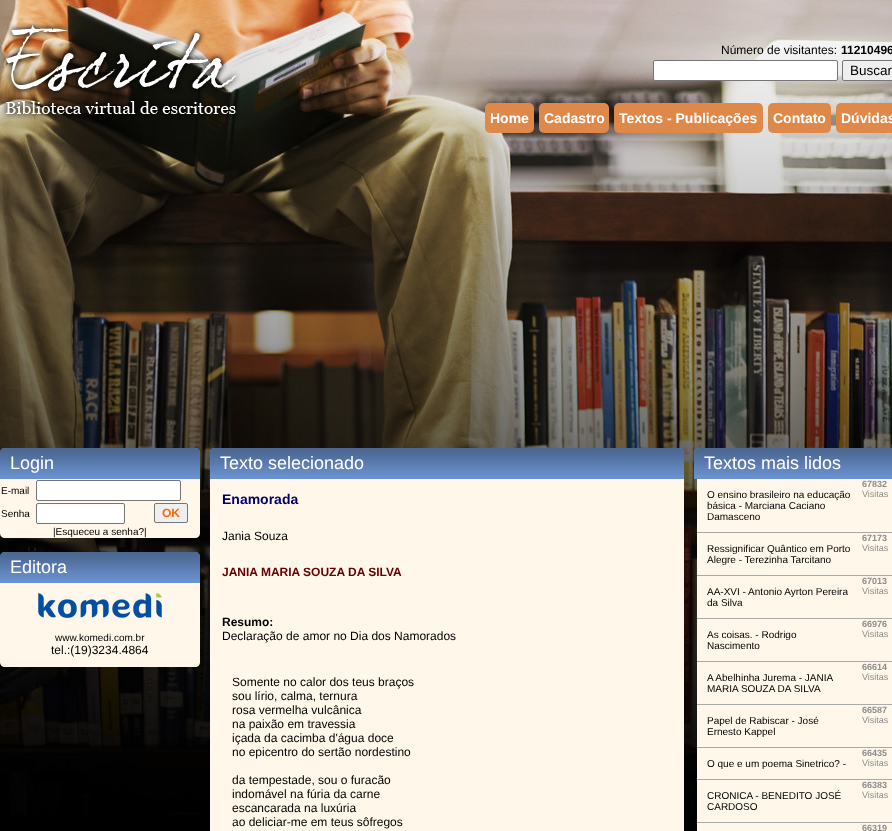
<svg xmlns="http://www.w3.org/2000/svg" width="892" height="831">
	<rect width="100%" height="100%" fill="#000000" />
	<image x="0" y="0" width="892" height="815" href="assets/img1.png" />
	<image x="1" y="21" width="239" height="98" href="assets/img2.png" />
	<text x="721" y="54" font-family="Liberation Sans" font-size="12" fill="#000000">Número de visitantes:</text>
	<text x="841" y="54" font-family="Liberation Sans" font-size="12" font-weight="700" fill="#000000">11210496</text>
	<rect x="653.5" y="60.5" width="184" height="20" rx="1.5" fill="#FFFFFF" stroke="#767676" />
	<rect x="842.5" y="60.5" width="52" height="20" rx="1.5" fill="#EFEFEF" stroke="#767676" />
	<text x="850" y="75" font-family="Liberation Sans" font-size="13.5" fill="#000000">Buscar</text>
	<rect x="485" y="103" width="49" height="30" rx="5" fill="#DE8949" />
	<text x="490" y="123" font-family="Liberation Sans" font-size="14" font-weight="700" fill="#FFFFFF">Home</text>
	<rect x="539" y="103" width="70" height="30" rx="5" fill="#DE8949" />
	<text x="544" y="123" font-family="Liberation Sans" font-size="14" font-weight="700" fill="#FFFFFF">Cadastro</text>
	<rect x="614" y="103" width="149" height="30" rx="5" fill="#DE8949" />
	<text x="619" y="123" font-family="Liberation Sans" font-size="14" font-weight="700" fill="#FFFFFF">Textos - Publicações</text>
	<rect x="768" y="103" width="63" height="30" rx="5" fill="#DE8949" />
	<text x="773" y="123" font-family="Liberation Sans" font-size="14" font-weight="700" fill="#FFFFFF">Contato</text>
	<rect x="836" y="103" width="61" height="30" rx="5" fill="#DE8949" />
	<text x="841" y="123" font-family="Liberation Sans" font-size="14" font-weight="700" fill="#FFFFFF">Dúvidas</text>
	<path d="M5 448H195C198 448 200 450 200 453V479H0V453C0 450 2 448 5 448Z" fill="#6991CE" />
	<image x="0" y="448" width="200" height="27" href="assets/img3.png" />
	<text x="10" y="469" font-family="Liberation Sans" font-size="18" fill="#FFFFFF">Login</text>
	<path d="M0 479H200V533C200 536 198 538 195 538H5C2 538 0 536 0 533Z" fill="#FFF7EA" />
	<text x="1" y="494" font-family="Liberation Sans" font-size="10" fill="#000000">E-mail</text>
	<rect x="36.5" y="480.5" width="144" height="20" rx="1.5" fill="#FFFFFF" stroke="#767676" />
	<text x="1" y="517" font-family="Liberation Sans" font-size="10" fill="#000000">Senha</text>
	<rect x="36.5" y="503.5" width="88" height="20" rx="1.5" fill="#FFFFFF" stroke="#767676" />
	<rect x="154.5" y="503.5" width="33" height="19" rx="1.5" fill="#EFEFEF" stroke="#767676" />
	<text x="162" y="517" font-family="Liberation Sans" font-size="12" font-weight="700" fill="#FF6600">OK</text>
	<text x="53" y="535" font-family="Liberation Sans" font-size="10" fill="#000000">|Esqueceu a senha?|</text>
	<path d="M5 552H195C198 552 200 554 200 557V583H0V557C0 554 2 552 5 552Z" fill="#6991CE" />
	<image x="0" y="552" width="200" height="27" href="assets/img4.png" />
	<text x="10" y="573" font-family="Liberation Sans" font-size="18" fill="#FFFFFF">Editora</text>
	<path d="M0 583H200V662C200 665 198 667 195 667H5C2 667 0 665 0 662Z" fill="#FFF7EA" />
	<image x="38" y="593" width="124" height="25" href="assets/img5.png" />
	<text x="55" y="641" font-family="Liberation Sans" font-size="10" fill="#000000">www.komedi.com.br</text>
	<text x="51" y="654" font-family="Liberation Sans" font-size="12" fill="#000000">tel.:(19)3234.4864</text>
	<path d="M215 448H679C682 448 684 450 684 453V479H210V453C210 450 212 448 215 448Z" fill="#6991CE" />
	<image x="210" y="448" width="474" height="27" href="assets/img6.png" />
	<text x="220" y="469" font-family="Liberation Sans" font-size="18" fill="#FFFFFF">Texto selecionado</text>
	<rect x="210" y="479" width="474" height="352" fill="#FFF7EA" />
	<text x="222" y="504" font-family="Liberation Sans" font-size="14" font-weight="700" fill="#000066">Enamorada</text>
	<text x="222" y="540" font-family="Liberation Sans" font-size="12" fill="#000000">Jania Souza</text>
	<text x="222" y="576" font-family="Liberation Sans" font-size="12" font-weight="700" fill="#660000">JANIA MARIA SOUZA DA SILVA</text>
	<text x="222" y="626" font-family="Liberation Sans" font-size="12" font-weight="700" fill="#000000">Resumo:</text>
	<g font-family="Liberation Sans" font-size="12" fill="#000000">
		<text x="222" y="640">Declaração de amor no Dia dos Namorados</text>
		<text x="232" y="686">Somente no calor dos teus braços</text>
		<text x="232" y="700">sou lírio, calma, ternura</text>
		<text x="232" y="714">rosa vermelha vulcânica</text>
		<text x="232" y="728">na paixão em travessia</text>
		<text x="232" y="742">içada da cacimba d'água doce</text>
		<text x="232" y="756">no epicentro do sertão nordestino</text>
		<text x="232" y="784">da tempestade, sou o furacão</text>
		<text x="232" y="798">indomável na fúria da carne</text>
		<text x="232" y="812">escancarada na luxúria</text>
		<text x="232" y="826">ao deliciar-me em teus sôfregos</text>
	</g>
	<path d="M699 448H892C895 448 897 450 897 453V479H694V453C694 450 696 448 699 448Z" fill="#6991CE" />
	<image x="694" y="448" width="198" height="27" href="assets/img7.png" />
	<text x="704" y="469" font-family="Liberation Sans" font-size="18" fill="#FFFFFF">Textos mais lidos</text>
	<rect x="697" y="479" width="195" height="352" fill="#FFF7EA" />
	<rect x="697" y="532" width="195" height="1" fill="#AAAAAA" />
	<g font-family="Liberation Sans" font-size="10" fill="#000000">
		<text x="707" y="498">O ensino brasileiro na educação</text>
		<text x="707" y="509">básica - Marciana Caciano</text>
		<text x="707" y="520">Damasceno</text>
	</g>
	<text x="862" y="487" font-family="Liberation Sans" font-size="9" font-weight="700" fill="#8D8D8D">67832</text>
	<text x="862" y="497" font-family="Liberation Sans" font-size="9" fill="#8D8D8D">Visitas</text>
	<rect x="697" y="575" width="195" height="1" fill="#AAAAAA" />
	<g font-family="Liberation Sans" font-size="10" fill="#000000">
		<text x="707" y="552">Ressignificar Quântico em Porto</text>
		<text x="707" y="563">Alegre - Terezinha Tarcitano</text>
	</g>
	<text x="862" y="541" font-family="Liberation Sans" font-size="9" font-weight="700" fill="#8D8D8D">67173</text>
	<text x="862" y="551" font-family="Liberation Sans" font-size="9" fill="#8D8D8D">Visitas</text>
	<rect x="697" y="618" width="195" height="1" fill="#AAAAAA" />
	<g font-family="Liberation Sans" font-size="10" fill="#000000">
		<text x="707" y="595">AA-XVI - Antonio Ayrton Pereira</text>
		<text x="707" y="606">da Silva</text>
	</g>
	<text x="862" y="584" font-family="Liberation Sans" font-size="9" font-weight="700" fill="#8D8D8D">67013</text>
	<text x="862" y="594" font-family="Liberation Sans" font-size="9" fill="#8D8D8D">Visitas</text>
	<rect x="697" y="661" width="195" height="1" fill="#AAAAAA" />
	<g font-family="Liberation Sans" font-size="10" fill="#000000">
		<text x="707" y="638">As coisas. - Rodrigo</text>
		<text x="707" y="649">Nascimento</text>
	</g>
	<text x="862" y="627" font-family="Liberation Sans" font-size="9" font-weight="700" fill="#8D8D8D">66976</text>
	<text x="862" y="637" font-family="Liberation Sans" font-size="9" fill="#8D8D8D">Visitas</text>
	<rect x="697" y="704" width="195" height="1" fill="#AAAAAA" />
	<g font-family="Liberation Sans" font-size="10" fill="#000000">
		<text x="707" y="681">A Abelhinha Jurema - JANIA</text>
		<text x="707" y="692">MARIA SOUZA DA SILVA</text>
	</g>
	<text x="862" y="670" font-family="Liberation Sans" font-size="9" font-weight="700" fill="#8D8D8D">66614</text>
	<text x="862" y="680" font-family="Liberation Sans" font-size="9" fill="#8D8D8D">Visitas</text>
	<rect x="697" y="747" width="195" height="1" fill="#AAAAAA" />
	<g font-family="Liberation Sans" font-size="10" fill="#000000">
		<text x="707" y="724">Papel de Rabiscar - José</text>
		<text x="707" y="735">Ernesto Kappel</text>
	</g>
	<text x="862" y="713" font-family="Liberation Sans" font-size="9" font-weight="700" fill="#8D8D8D">66587</text>
	<text x="862" y="723" font-family="Liberation Sans" font-size="9" fill="#8D8D8D">Visitas</text>
	<rect x="697" y="779" width="195" height="1" fill="#AAAAAA" />
	<text x="707" y="767" font-family="Liberation Sans" font-size="10" fill="#000000">O que e um poema Sinetrico? -</text>
	<text x="862" y="756" font-family="Liberation Sans" font-size="9" font-weight="700" fill="#8D8D8D">66435</text>
	<text x="862" y="766" font-family="Liberation Sans" font-size="9" fill="#8D8D8D">Visitas</text>
	<rect x="697" y="822" width="195" height="1" fill="#AAAAAA" />
	<g font-family="Liberation Sans" font-size="10" fill="#000000">
		<text x="707" y="799">CRONICA - BENEDITO JOSÉ</text>
		<text x="707" y="810">CARDOSO</text>
	</g>
	<text x="862" y="788" font-family="Liberation Sans" font-size="9" font-weight="700" fill="#8D8D8D">66383</text>
	<text x="862" y="798" font-family="Liberation Sans" font-size="9" fill="#8D8D8D">Visitas</text>
	<text x="862" y="831" font-family="Liberation Sans" font-size="9" font-weight="700" fill="#8D8D8D">66319</text>
</svg>
